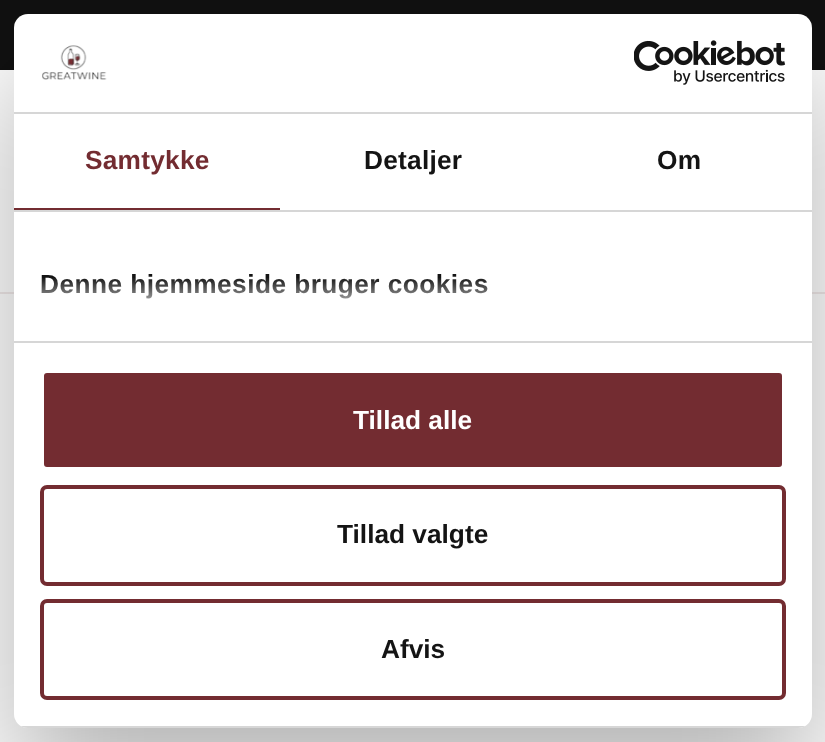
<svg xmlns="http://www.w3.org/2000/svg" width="825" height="742">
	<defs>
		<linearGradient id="g1" gradientUnits="userSpaceOnUse" x1="402" y1="341" x2="402" y2="277"><stop offset="0" stop-color="#FFFFFF" /><stop offset="0.5" stop-color="#FFFFFF" stop-opacity="0.8" /><stop offset="1" stop-color="#FFFFFF" stop-opacity="0" /></linearGradient>
		<clipPath id="clip1"><rect x="14" y="14" width="798" height="714" rx="14" /></clipPath>
	</defs>
	<rect width="100%" height="100%" fill="#FFFFFF" />
	<rect x="0" y="0" width="825" height="70" fill="#111111" />
	<rect x="0" y="292" width="825" height="2" fill="#F1EAEA" />
	<rect x="14" y="70" width="798" height="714" rx="14" fill="#000000" fill-opacity="0.3" filter="blur(59.5px)" />
	<rect x="14" y="14" width="798" height="714" rx="14" fill="#FFFFFF" />
	<rect x="14" y="112" width="798" height="2" fill="#D6D6D6" />
	<image x="42" y="45" width="65" height="35" href="assets/img1.png" />
	<image x="634" y="40" width="152" height="45" href="assets/img2.png" />
	<rect x="14" y="210" width="798" height="2" fill="#D6D6D6" />
	<rect x="14" y="208" width="266" height="2" fill="#732C31" />
	<text x="85" y="169" font-family="Liberation Sans" font-size="26.25" font-weight="700" letter-spacing="0.25" fill="#732C31">Samtykke</text>
	<g font-family="Liberation Sans" font-size="26.25" font-weight="700" letter-spacing="0.25" fill="#141414">
		<text x="364" y="169">Detaljer</text>
		<text x="657" y="169">Om</text>
	</g>
	<rect x="14" y="341" width="798" height="2" fill="#D6D6D6" />
	<text x="40" y="293" font-family="Liberation Sans" font-size="26.25" font-weight="700" letter-spacing="0.45" fill="#141414">Denne hjemmeside bruger cookies</text>
	<rect x="42" y="278" width="445" height="21" fill="url(#g1)" />
	<g clip-path="url(#clip1)">
		<rect x="14" y="726" width="798" height="2" fill="#D6D6D6" />
	</g>
	<rect x="42" y="371" width="742" height="98" rx="5" fill="#732C31" stroke="#FFFFFF" stroke-width="4" />
	<text x="353" y="429" font-family="Liberation Sans" font-size="26.25" font-weight="700" fill="#FFFFFF">Tillad alle</text>
	<rect x="42" y="487" width="742" height="97" rx="5" fill="none" stroke="#732C31" stroke-width="4" />
	<text x="337" y="543" font-family="Liberation Sans" font-size="26.25" font-weight="700" fill="#141414">Tillad valgte</text>
	<rect x="42" y="601" width="742" height="97" rx="5" fill="none" stroke="#732C31" stroke-width="4" />
	<text x="381" y="658" font-family="Liberation Sans" font-size="26.25" font-weight="700" fill="#141414">Afvis</text>
</svg>
